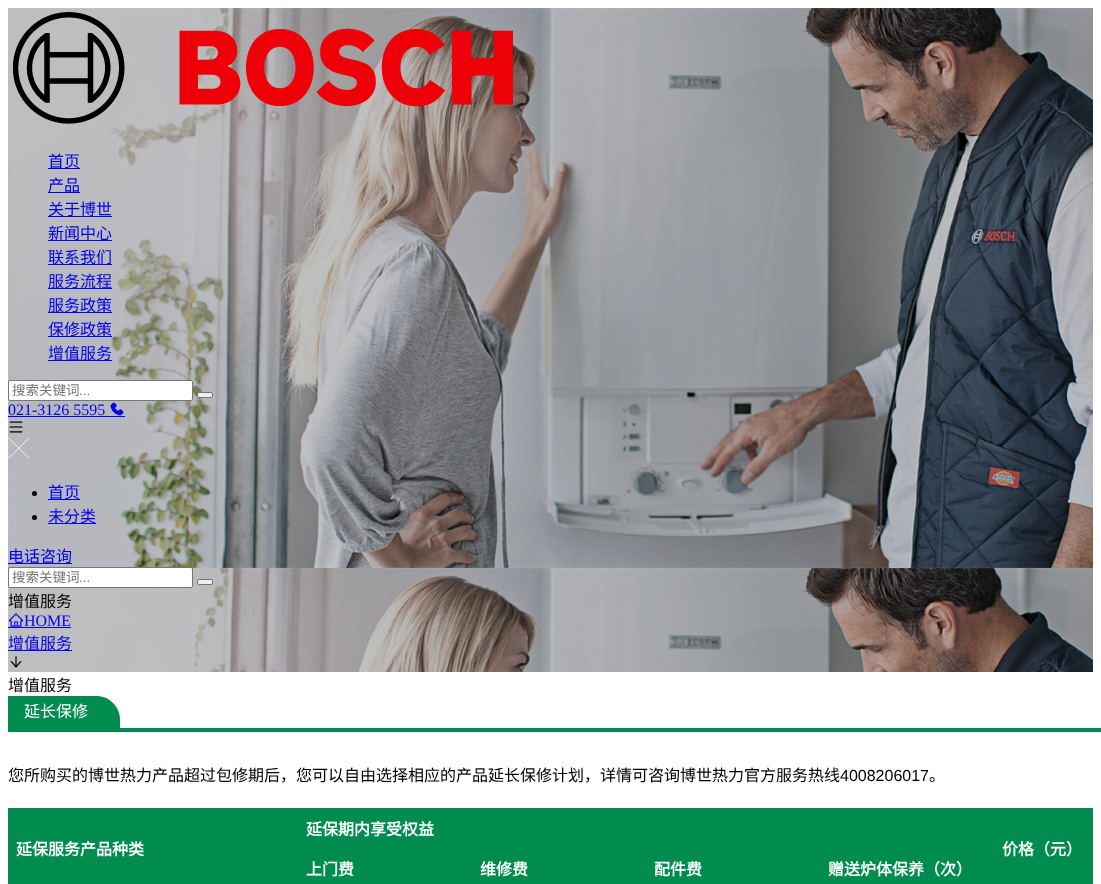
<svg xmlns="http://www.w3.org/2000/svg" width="1101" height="884">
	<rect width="100%" height="100%" fill="#FFFFFF" />
	<image x="8" y="8" width="1085" height="664" href="assets/img1.png" />
	<image x="13" y="12" width="500" height="112" href="assets/img2.png" />
	<rect x="48" y="168" width="32" height="1" fill="#0000EE" />
	<text x="48" y="167" font-family="Noto Sans CJK SC" font-size="16" fill="#0000EE">首页</text>
	<rect x="48" y="192" width="32" height="1" fill="#0000EE" />
	<text x="48" y="191" font-family="Noto Sans CJK SC" font-size="16" fill="#0000EE">产品</text>
	<rect x="48" y="216" width="64" height="1" fill="#0000EE" />
	<text x="48" y="215" font-family="Noto Sans CJK SC" font-size="16" fill="#0000EE">关于博世</text>
	<rect x="48" y="240" width="64" height="1" fill="#0000EE" />
	<text x="48" y="239" font-family="Noto Sans CJK SC" font-size="16" fill="#0000EE">新闻中心</text>
	<rect x="48" y="264" width="64" height="1" fill="#0000EE" />
	<text x="48" y="263" font-family="Noto Sans CJK SC" font-size="16" fill="#0000EE">联系我们</text>
	<rect x="48" y="288" width="64" height="1" fill="#0000EE" />
	<text x="48" y="287" font-family="Noto Sans CJK SC" font-size="16" fill="#0000EE">服务流程</text>
	<rect x="48" y="312" width="64" height="1" fill="#0000EE" />
	<text x="48" y="311" font-family="Noto Sans CJK SC" font-size="16" fill="#0000EE">服务政策</text>
	<rect x="48" y="336" width="64" height="1" fill="#0000EE" />
	<text x="48" y="335" font-family="Noto Sans CJK SC" font-size="16" fill="#0000EE">保修政策</text>
	<rect x="48" y="360" width="64" height="1" fill="#0000EE" />
	<text x="48" y="359" font-family="Noto Sans CJK SC" font-size="16" fill="#0000EE">增值服务</text>
	<rect x="8.5" y="380.5" width="184" height="20" rx="1.5" fill="#FFFFFF" stroke="#767676" />
	<text x="12" y="395" font-family="Noto Sans CJK SC" font-size="13.5" fill="#757575">搜索关键词</text>
	<text x="79" y="395" font-family="Liberation Sans" font-size="13.5" fill="#757575">...</text>
	<rect x="197.5" y="392.5" width="15" height="5" rx="1.5" fill="#EFEFEF" stroke="#767676" />
	<text x="8" y="415" font-family="Liberation Serif" font-size="16" fill="#0000EE">021-3126 5595</text>
	<rect x="8" y="416" width="117" height="1" fill="#0000EE" />
	<image x="110" y="402" width="14" height="14" href="assets/img3.png" />
	<image x="9" y="421" width="14" height="12" href="assets/img4.png" />
	<image x="8" y="437" width="22" height="22" href="assets/img5.png" />
	<circle cx="34.5" cy="493.5" r="2.5" fill="#000000" />
	<rect x="48" y="499" width="32" height="1" fill="#0000EE" />
	<text x="48" y="498" font-family="Noto Sans CJK SC" font-size="16" fill="#0000EE">首页</text>
	<circle cx="34.5" cy="517.5" r="2.5" fill="#000000" />
	<rect x="48" y="523" width="48" height="1" fill="#0000EE" />
	<text x="48" y="522" font-family="Noto Sans CJK SC" font-size="16" fill="#0000EE">未分类</text>
	<rect x="8" y="563" width="64" height="1" fill="#0000EE" />
	<text x="8" y="562" font-family="Noto Sans CJK SC" font-size="16" fill="#0000EE">电话咨询</text>
	<rect x="8.5" y="567.5" width="184" height="20" rx="1.5" fill="#FFFFFF" stroke="#767676" />
	<text x="12" y="582" font-family="Noto Sans CJK SC" font-size="13.5" fill="#757575">搜索关键词</text>
	<text x="79" y="582" font-family="Liberation Sans" font-size="13.5" fill="#757575">...</text>
	<rect x="197.5" y="579.5" width="15" height="5" rx="1.5" fill="#EFEFEF" stroke="#767676" />
	<text x="8" y="607" font-family="Noto Sans CJK SC" font-size="16" fill="#000000">增值服务</text>
	<image x="8" y="613" width="16" height="14" href="assets/img6.png" />
	<text x="24" y="626" font-family="Liberation Serif" font-size="16" fill="#0000EE">HOME</text>
	<rect x="8" y="627" width="63" height="1" fill="#0000EE" />
	<rect x="8" y="650" width="64" height="1" fill="#0000EE" />
	<text x="8" y="649" font-family="Noto Sans CJK SC" font-size="16" fill="#0000EE">增值服务</text>
	<image x="10" y="656" width="12" height="12" href="assets/img7.png" />
	<text x="8" y="691" font-family="Noto Sans CJK SC" font-size="16" fill="#000000">增值服务</text>
	<rect x="8" y="728" width="1093" height="4" fill="#008C4E" />
	<path d="M8 696H96C109.5 696 120 706.5 120 720V728H8Z" fill="#008C4E" />
	<text x="24" y="717" font-family="Noto Sans CJK SC" font-size="16" fill="#FFFFFF">延长保修</text>
	<text x="8" y="781" font-family="Noto Sans CJK SC" font-size="16" fill="#000000">您所购买的博世热力产品超过包修期后，您可以自由选择相应的产品延长保修计划，详情可咨询博世热力官方服务热线</text>
	<text x="840" y="781" font-family="Liberation Sans" font-size="16" fill="#000000">4008206017</text>
	<text x="929" y="781" font-family="Noto Sans CJK SC" font-size="16" fill="#000000">。</text>
	<rect x="298" y="808" width="696" height="40" fill="#008C4E" />
	<text x="306" y="835" font-family="Noto Sans CJK SC" font-size="16" font-weight="700" fill="#FFFFFF">延保期内享受权益</text>
	<rect x="8" y="808" width="290" height="76" fill="#008C4E" />
	<text x="16" y="855" font-family="Noto Sans CJK SC" font-size="16" font-weight="700" fill="#FFFFFF">延保服务产品种类</text>
	<rect x="994" y="808" width="99" height="76" fill="#008C4E" />
	<text x="1002" y="855" font-family="Noto Sans CJK SC" font-size="16" font-weight="700" fill="#FFFFFF">价格（元）</text>
	<rect x="298" y="848" width="696" height="36" fill="#008C4E" />
	<g font-family="Noto Sans CJK SC" font-size="16" font-weight="700" fill="#FFFFFF">
		<text x="306" y="875">上门费</text>
		<text x="480" y="875">维修费</text>
		<text x="654" y="875">配件费</text>
		<text x="828" y="875">赠送炉体保养（次）</text>
	</g>
</svg>
